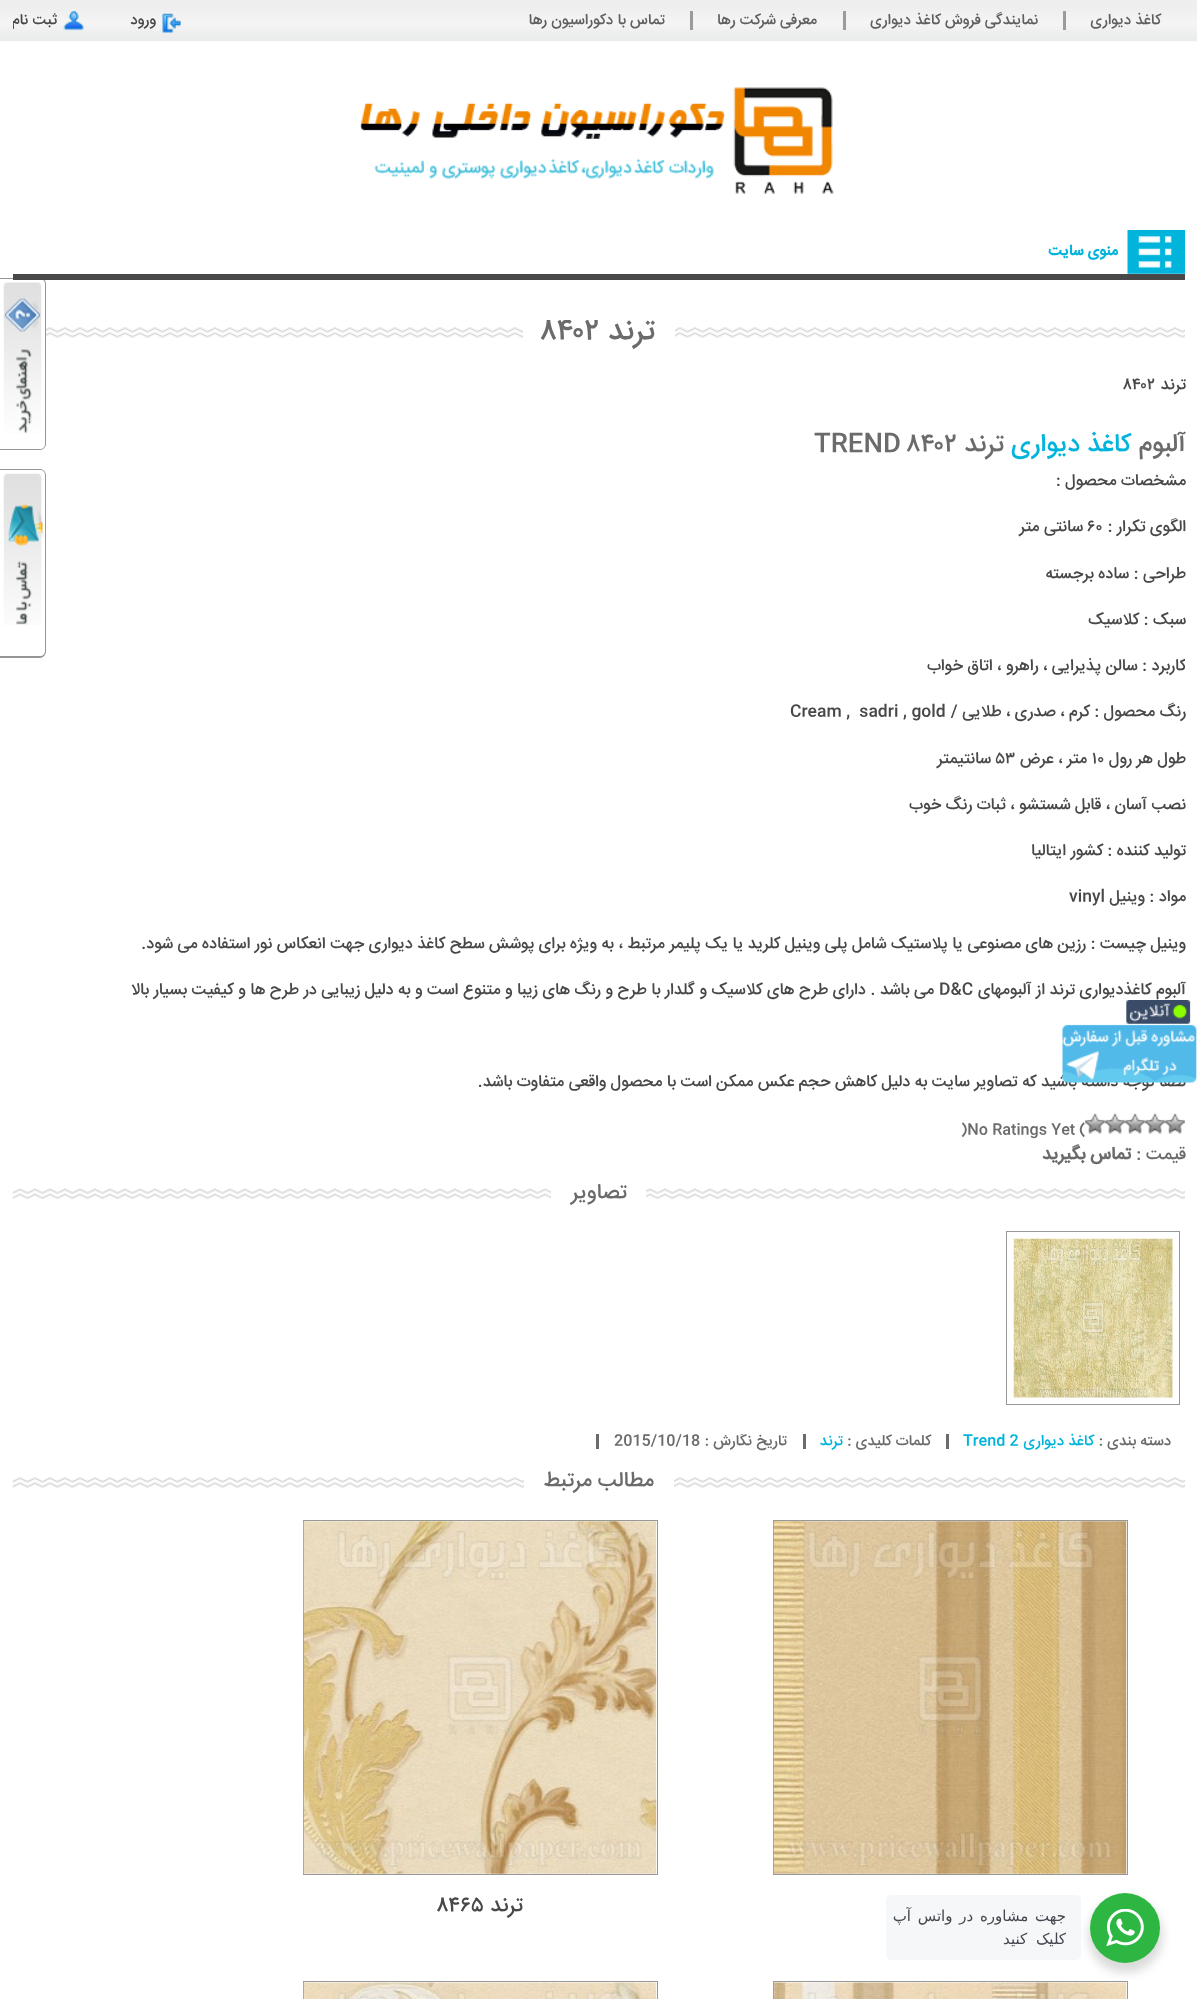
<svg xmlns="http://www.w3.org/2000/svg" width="1197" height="1999">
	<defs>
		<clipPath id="clip1"><rect x="13" y="0" width="1172" height="41" /></clipPath>
		<clipPath id="clip2"><rect x="13" y="320" width="1172" height="848" /></clipPath>
		<clipPath id="clip3"><rect x="13" y="370" width="1172" height="798" /></clipPath>
		<clipPath id="clip4"><rect x="13" y="1434" width="1172" height="25" /></clipPath>
	</defs>
	<rect width="100%" height="100%" fill="#FFFFFF" />
	<image x="0" y="0" width="1197" height="42" href="assets/img1.png" />
	<rect x="1063" y="11" width="3" height="19" fill="#9B9B9B" />
	<text x="1161" y="24" font-family="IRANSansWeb" font-size="15" font-weight="500" direction="rtl" fill="#5F5F5F">کاغذ دیواری</text>
	<rect x="843" y="11" width="3" height="19" fill="#9B9B9B" />
	<text x="1038" y="24" font-family="IRANSansWeb" font-size="15" font-weight="500" direction="rtl" fill="#5F5F5F">نمایندگی فروش کاغذ دیواری</text>
	<rect x="690" y="11" width="3" height="19" fill="#9B9B9B" />
	<g font-family="IRANSansWeb" font-size="15" font-weight="500" direction="rtl" fill="#5F5F5F">
		<text x="817" y="24">معرفی شرکت رها</text>
		<text x="665" y="24">تماس با دکوراسیون رها</text>
	</g>
	<image x="162" y="13" width="19" height="20" href="assets/img2.png" />
	<text x="156" y="24" font-family="IRANSansWeb" font-size="15" font-weight="500" direction="rtl" fill="#484848">ورود</text>
	<image x="63" y="11" width="21" height="20" href="assets/img3.png" />
	<g clip-path="url(#clip1)">
		<text x="57" y="24" font-family="IRANSansWeb" font-size="15" font-weight="500" direction="rtl" fill="#484848">ثبت نام</text>
	</g>
	<image x="360" y="87" width="474" height="107" href="assets/img4.png" />
	<image x="3" y="282" width="39" height="152" href="assets/img16.png" />
	<path d="M0 278H40C43 278 46 280 46 284V444C46 447 43 450 40 450H0ZM0 279H40C43 279 45 281 45 284V444C45 447 43 449 40 449H0Z" fill="#959595" fill-rule="evenodd" />
	<rect x="13" y="274" width="1172" height="6" fill="#484848" />
	<image x="1127" y="230" width="58" height="44" href="assets/img5.png" />
	<text x="1118" y="255" font-family="IRANSansWeb" font-size="15" font-weight="700" direction="rtl" fill="#00B4DB">منوی سایت</text>
	<image x="46" y="327" width="1139" height="11" href="assets/img6.png" />
	<rect x="523" y="327" width="152" height="11" fill="#FFFFFF" />
	<text x="655" y="339" font-family="IRANSansWeb" font-size="30" font-weight="500" direction="rtl" fill="#6B6B6B">ترند</text>
	<g clip-path="url(#clip2)">
		<text x="542" y="339" font-family="IRANSansWeb" font-size="30" font-weight="500" fill="#6B6B6B">۸۴۰۲</text>
	</g>
	<text x="1186" y="389" font-family="IRANSansWeb" font-size="16.25" font-weight="500" direction="rtl" fill="#484848">ترند</text>
	<text x="1124" y="389" font-family="IRANSansWeb" font-size="16.25" font-weight="500" fill="#484848">۸۴۰۲</text>
	<text x="1186" y="451" font-family="IRANSansWeb" font-size="25.5" font-weight="500" direction="rtl" fill="#6B6B6B">آلبوم</text>
	<text x="1131" y="451" font-family="IRANSansWeb" font-size="25.5" font-weight="500" direction="rtl" fill="#00B4DB">کاغذ دیواری</text>
	<text x="1004" y="451" font-family="IRANSansWeb" font-size="25.5" font-weight="500" direction="rtl" fill="#6B6B6B">ترند</text>
	<text x="814" y="451" font-family="IRANSansWeb" font-size="25.5" font-weight="500" fill="#6B6B6B">TREND ۸۴۰۲</text>
	<g font-family="IRANSansWeb" font-size="16.25" font-weight="500" direction="rtl" fill="#484848">
		<text x="1186" y="485">مشخصات محصول :</text>
		<text x="1186" y="531">الگوی تکرار :</text>
	</g>
	<text x="1087" y="531" font-family="IRANSansWeb" font-size="16.25" font-weight="500" fill="#484848">۶۰</text>
	<g font-family="IRANSansWeb" font-size="16.25" font-weight="500" direction="rtl" fill="#484848">
		<text x="1083" y="531">سانتی متر</text>
		<text x="1186" y="578">طراحی : ساده برجسته</text>
		<text x="1186" y="624">سبک : کلاسیک</text>
	</g>
	<g clip-path="url(#clip3)">
		<text x="1186" y="670" font-family="IRANSansWeb" font-size="16.25" font-weight="500" direction="rtl" fill="#484848">کاربرد : سالن پذیرایی ، راهرو ، اتاق خواب</text>
	</g>
	<text x="1186" y="716" font-family="IRANSansWeb" font-size="16.25" font-weight="500" direction="rtl" fill="#484848">رنگ محصول : کرم ، صدری ، طلایی /</text>
	<text x="790" y="716" font-family="IRANSansWeb" font-size="16.25" font-weight="500" fill="#484848" xml:space="preserve">Cream ,  sadri , gold</text>
	<text x="1186" y="763" font-family="IRANSansWeb" font-size="16.25" font-weight="500" direction="rtl" fill="#484848">طول هر رول</text>
	<text x="1092" y="763" font-family="IRANSansWeb" font-size="16.25" font-weight="500" fill="#484848">۱۰</text>
	<text x="1087" y="763" font-family="IRANSansWeb" font-size="16.25" font-weight="500" direction="rtl" fill="#484848">متر ، عرض</text>
	<text x="996" y="763" font-family="IRANSansWeb" font-size="16.25" font-weight="500" fill="#484848">۵۳</text>
	<g font-family="IRANSansWeb" font-size="16.25" font-weight="500" direction="rtl" fill="#484848">
		<text x="991" y="763">سانتیمتر</text>
		<text x="1186" y="809">نصب آسان ، قابل شستشو ، ثبات رنگ خوب</text>
		<text x="1186" y="855">تولید کننده : کشور ایتالیا</text>
		<text x="1186" y="901">مواد : وینیل</text>
	</g>
	<text x="1069" y="901" font-family="IRANSansWeb" font-size="16.25" font-weight="500" fill="#484848">vinyl</text>
	<g font-family="IRANSansWeb" font-size="16.25" font-weight="500" direction="rtl" fill="#484848">
		<text x="1186" y="948">وینیل چیست : رزین های مصنوعی یا پلاستیک شامل پلی وینیل کلرید یا یک پلیمر مرتبط ، به ویژه برای پوشش سطح کاغذ دیواری جهت انعکاس نور استفاده می شود.</text>
		<text x="1186" y="994">آلبوم کاغذدیواری ترند از آلبومهای</text>
	</g>
	<text x="939" y="994" font-family="IRANSansWeb" font-size="16.25" font-weight="500" fill="#484848">D&amp;C</text>
	<g font-family="IRANSansWeb" font-size="16.25" font-weight="500" direction="rtl" fill="#484848">
		<text x="934" y="994">می باشد . دارای طرح های کلاسیک و گلدار با طرح و رنگ های زیبا و متنوع است و به دلیل زیبایی در طرح ها و کیفیت بسیار بالا</text>
		<text x="1186" y="1086">لطفا توجه داشته باشید که تصاویر سایت به دلیل کاهش حجم عکس ممکن است با محصول واقعی متفاوت باشد.</text>
	</g>
	<image x="1165" y="1113" width="20" height="21" href="assets/img7.png" />
	<image x="1145" y="1113" width="20" height="21" href="assets/img7.png" />
	<image x="1125" y="1113" width="20" height="21" href="assets/img7.png" />
	<image x="1105" y="1113" width="20" height="21" href="assets/img7.png" />
	<image x="1085" y="1113" width="20" height="21" href="assets/img8.png" />
	<text x="961" y="1134" font-family="IRANSansWeb" font-size="15" font-weight="500" fill="#6B6B6B">)No Ratings Yet (</text>
	<text x="1186" y="1159" font-family="IRANSansWeb" font-size="17.5" font-weight="500" direction="rtl" fill="#6B6B6B">قيمت :</text>
	<text x="1131" y="1159" font-family="IRANSansWeb" font-size="17.5" font-weight="700" direction="rtl" fill="#6B6B6B">تماس بگیرید</text>
	<image x="12" y="1188" width="1173" height="11" href="assets/img9.png" />
	<rect x="551" y="1188" width="95" height="11" fill="#FFFFFF" />
	<text x="627" y="1198" font-family="IRANSansWeb" font-size="21" font-weight="500" direction="rtl" fill="#6B6B6B">تصاویر</text>
	<rect x="1006.5" y="1231.5" width="173" height="173" fill="none" stroke="#989898" />
	<image x="1013" y="1238" width="160" height="160" href="assets/img10.png" />
	<rect x="946" y="1434" width="3" height="15" fill="#6B6B6B" />
	<text x="1171" y="1445" font-family="IRANSansWeb" font-size="15" font-weight="500" direction="rtl" fill="#6B6B6B">دسته بندی :</text>
	<text x="1094" y="1445" font-family="IRANSansWeb" font-size="15" font-weight="500" direction="rtl" fill="#00B4DB">کاغذ دیواری</text>
	<text x="963" y="1445" font-family="IRANSansWeb" font-size="15" font-weight="500" fill="#00B4DB">Trend 2</text>
	<rect x="803" y="1434" width="3" height="15" fill="#6B6B6B" />
	<text x="931" y="1445" font-family="IRANSansWeb" font-size="15" font-weight="500" direction="rtl" fill="#6B6B6B">کلمات کلیدی :</text>
	<text x="843" y="1445" font-family="IRANSansWeb" font-size="15" font-weight="500" direction="rtl" fill="#00B4DB">ترند</text>
	<rect x="596" y="1434" width="3" height="15" fill="#6B6B6B" />
	<g clip-path="url(#clip4)">
		<text x="787" y="1445" font-family="IRANSansWeb" font-size="15" font-weight="500" direction="rtl" fill="#6B6B6B">تاریخ نگارش :</text>
	</g>
	<text x="614" y="1445" font-family="IRANSansWeb" font-size="15" font-weight="500" fill="#6B6B6B">2015/10/18</text>
	<image x="12" y="1477" width="1173" height="11" href="assets/img11.png" />
	<rect x="524" y="1477" width="150" height="11" fill="#FFFFFF" />
	<text x="654" y="1486" font-family="IRANSansWeb" font-size="21" font-weight="500" direction="rtl" fill="#6B6B6B">مطالب مرتبط</text>
	<rect x="773.5" y="1520.5" width="354" height="354" fill="none" stroke="#989898" />
	<image x="773" y="1521" width="354" height="353" href="assets/img12.png" />
	<rect x="303.5" y="1520.5" width="354" height="354" fill="none" stroke="#989898" />
	<image x="303" y="1521" width="354" height="353" href="assets/img13.png" />
	<text x="523" y="1911" font-family="IRANSansWeb" font-size="21" font-weight="500" direction="rtl" fill="#484848">ترند</text>
	<text x="438" y="1911" font-family="IRANSansWeb" font-size="21" font-weight="500" fill="#484848">۸۴۶۵</text>
	<rect x="773.5" y="1981.5" width="354" height="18" fill="none" stroke="#989898" />
	<image x="773" y="1982" width="354" height="17" href="assets/img14.png" />
	<rect x="303.5" y="1981.5" width="354" height="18" fill="none" stroke="#989898" />
	<image x="303" y="1982" width="354" height="17" href="assets/img15.png" />
	<image x="3" y="473" width="41" height="152" href="assets/img17.png" />
	<path d="M0 469H40C43 469 46 472 46 475V651C46 655 43 658 40 658H0ZM0 470H40C43 470 45 472 45 475V651C45 654 43 656 40 656H0Z" fill="#959595" fill-rule="evenodd" />
	<image x="1062" y="1000" width="135" height="83" href="assets/img18.png" />
	<rect x="1088" y="1898" width="75" height="75" rx="37.5" fill="#000000" fill-opacity="0.14" filter="blur(5px)" />
	<circle cx="1125" cy="1928" r="35" fill="#2DB742" />
	<image x="1106" y="1909" width="38" height="37" href="assets/img19.png" />
	<rect x="886" y="1895" width="195" height="65" rx="5" fill="#F5F7F9" />
	<g font-family="DejaVu Sans" font-size="15" letter-spacing="-0.45" direction="rtl" fill="#43474E">
		<text x="1066" y="1921" word-spacing="2">جهت مشاوره در واتس آپ</text>
		<text x="1066" y="1944" word-spacing="4">کلیک کنید</text>
	</g>
</svg>
